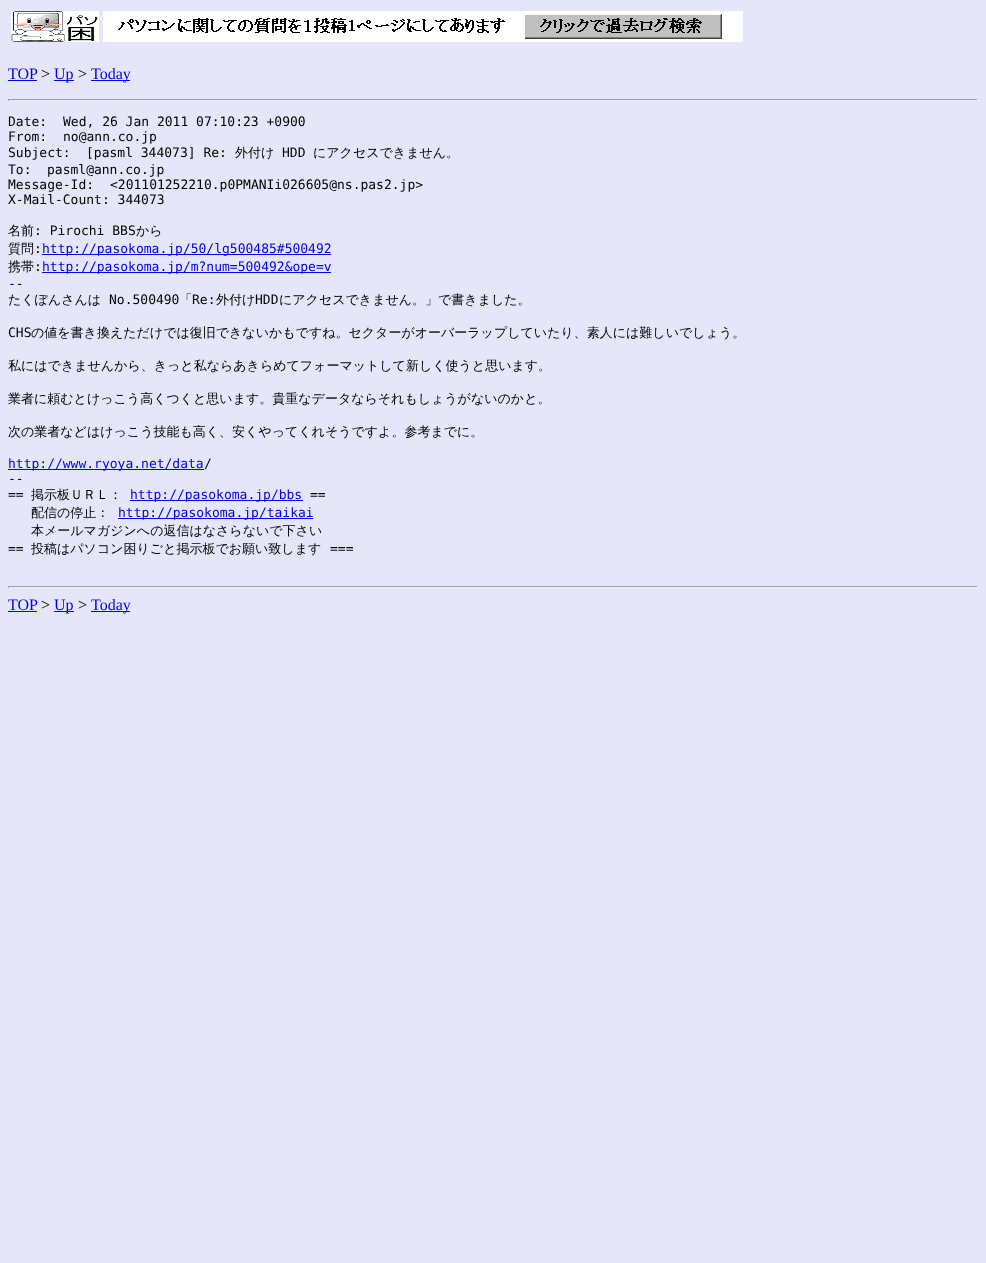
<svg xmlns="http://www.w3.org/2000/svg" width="986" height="1263">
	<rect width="100%" height="100%" fill="#E6E6FA" />
	<image x="11" y="11" width="88" height="31" href="assets/img1.png" />
	<image x="103" y="11" width="640" height="31" href="assets/img2.png" />
	<text x="8" y="79" font-family="Liberation Serif" font-size="16" fill="#0000EE">TOP</text>
	<rect x="8" y="80" width="29" height="1" fill="#0000EE" />
	<text x="41" y="79" font-family="Liberation Serif" font-size="16" fill="#000000">&gt;</text>
	<rect x="54" y="80" width="20" height="1" fill="#0000EE" />
	<text x="54" y="79" font-family="Liberation Serif" font-size="16" fill="#0000EE">Up</text>
	<text x="78" y="79" font-family="Liberation Serif" font-size="16" fill="#000000">&gt;</text>
	<rect x="91" y="80" width="39" height="1" fill="#0000EE" />
	<text x="91" y="79" font-family="Liberation Serif" font-size="16" fill="#0000EE">Today</text>
	<rect x="8" y="99" width="970" height="1" fill="#9F9F9F" />
	<rect x="977" y="99" width="1" height="2" fill="#EEEEEE" />
	<rect x="8" y="100" width="970" height="1" fill="#EEEEEE" />
	<rect x="8" y="99" width="1" height="2" fill="#9F9F9F" />
	<g font-family="DejaVu Sans Mono" font-size="13" fill="#000000">
		<text x="8" y="126">Date:</text>
		<text x="63" y="126">Wed, 26 Jan 2011 07:10:23 +0900</text>
		<text x="8" y="141">From:</text>
		<text x="63" y="141">no@ann.co.jp</text>
		<text x="8" y="157">Subject:</text>
		<text x="86" y="157">[pasml 344073] Re:</text>
	</g>
	<text x="235" y="157" font-family="WenQuanYi Zen Hei" font-size="13" font-weight="500" fill="#000000">外付け</text>
	<text x="282" y="157" font-family="DejaVu Sans Mono" font-size="13" fill="#000000">HDD</text>
	<text x="313" y="157" font-family="WenQuanYi Zen Hei" font-size="13" font-weight="500" fill="#000000">にアクセスできません。</text>
	<g font-family="DejaVu Sans Mono" font-size="13" fill="#000000">
		<text x="8" y="174">To:</text>
		<text x="47" y="174">pasml@ann.co.jp</text>
		<text x="8" y="189">Message-Id:</text>
		<text x="110" y="189">&lt;201101252210.p0PMANIi026605@ns.pas2.jp&gt;</text>
		<text x="8" y="204">X-Mail-Count: 344073</text>
	</g>
	<text x="8" y="235" font-family="WenQuanYi Zen Hei" font-size="13" font-weight="500" fill="#000000">名前</text>
	<text x="34" y="235" font-family="DejaVu Sans Mono" font-size="13" fill="#000000">: Pirochi BBS</text>
	<g font-family="WenQuanYi Zen Hei" font-size="13" font-weight="500" fill="#000000">
		<text x="136" y="235">から</text>
		<text x="8" y="253">質問</text>
	</g>
	<text x="34" y="253" font-family="DejaVu Sans Mono" font-size="13" fill="#000000">:</text>
	<rect x="42" y="254" width="289" height="1" fill="#0000EE" />
	<text x="42" y="253" font-family="DejaVu Sans Mono" font-size="13" fill="#0000EE">http://pasokoma.jp/50/lg500485#500492</text>
	<text x="8" y="271" font-family="WenQuanYi Zen Hei" font-size="13" font-weight="500" fill="#000000">携帯</text>
	<text x="34" y="271" font-family="DejaVu Sans Mono" font-size="13" fill="#000000">:</text>
	<rect x="42" y="272" width="289" height="1" fill="#0000EE" />
	<text x="42" y="271" font-family="DejaVu Sans Mono" font-size="13" fill="#0000EE">http://pasokoma.jp/m?num=500492&amp;ope=v</text>
	<text x="8" y="288" font-family="DejaVu Sans Mono" font-size="13" fill="#000000">--</text>
	<text x="8" y="304" font-family="WenQuanYi Zen Hei" font-size="13" font-weight="500" fill="#000000">たくぼんさんは</text>
	<text x="109" y="304" font-family="DejaVu Sans Mono" font-size="13" fill="#000000">No.500490</text>
	<text x="179" y="304" font-family="WenQuanYi Zen Hei" font-size="13" font-weight="500" fill="#000000">「</text>
	<text x="192" y="304" font-family="DejaVu Sans Mono" font-size="13" fill="#000000">Re:</text>
	<text x="216" y="304" font-family="WenQuanYi Zen Hei" font-size="13" font-weight="500" fill="#000000">外付け</text>
	<text x="255" y="304" font-family="DejaVu Sans Mono" font-size="13" fill="#000000">HDD</text>
	<text x="279" y="304" font-family="WenQuanYi Zen Hei" font-size="13" font-weight="500" fill="#000000">にアクセスできません。」で書きました。</text>
	<text x="8" y="337" font-family="DejaVu Sans Mono" font-size="13" fill="#000000">CHS</text>
	<g font-family="WenQuanYi Zen Hei" font-size="13" font-weight="500" fill="#000000">
		<text x="31" y="337">の値を書き換えただけでは復旧できないかもですね。セクターがオーバーラップしていたり、素人には難しいでしょう。</text>
		<text x="8" y="370">私にはできませんから、きっと私ならあきらめてフォーマットして新しく使うと思います。</text>
		<text x="8" y="403">業者に頼むとけっこう高くつくと思います。貴重なデータならそれもしょうがないのかと。</text>
		<text x="8" y="436">次の業者などはけっこう技能も高く、安くやってくれそうですよ。参考までに。</text>
	</g>
	<rect x="8" y="469" width="196" height="1" fill="#0000EE" />
	<text x="8" y="468" font-family="DejaVu Sans Mono" font-size="13" fill="#0000EE">http://www.ryoya.net/data</text>
	<g font-family="DejaVu Sans Mono" font-size="13" fill="#000000">
		<text x="204" y="468">/</text>
		<text x="8" y="483">--</text>
		<text x="8" y="499">==</text>
	</g>
	<text x="31" y="499" font-family="WenQuanYi Zen Hei" font-size="13" font-weight="500" fill="#000000">掲示板ＵＲＬ：</text>
	<rect x="130" y="500" width="173" height="1" fill="#0000EE" />
	<text x="130" y="499" font-family="DejaVu Sans Mono" font-size="13" fill="#0000EE">http://pasokoma.jp/bbs</text>
	<text x="310" y="499" font-family="DejaVu Sans Mono" font-size="13" fill="#000000">==</text>
	<text x="31" y="517" font-family="WenQuanYi Zen Hei" font-size="13" font-weight="500" fill="#000000">配信の停止：</text>
	<rect x="118" y="518" width="195" height="1" fill="#0000EE" />
	<text x="118" y="517" font-family="DejaVu Sans Mono" font-size="13" fill="#0000EE">http://pasokoma.jp/taikai</text>
	<text x="31" y="535" font-family="WenQuanYi Zen Hei" font-size="13" font-weight="500" fill="#000000">本メールマガジンへの返信はなさらないで下さい</text>
	<text x="8" y="553" font-family="DejaVu Sans Mono" font-size="13" fill="#000000">==</text>
	<text x="31" y="553" font-family="WenQuanYi Zen Hei" font-size="13" font-weight="500" fill="#000000">投稿はパソコン困りごと掲示板でお願い致します</text>
	<text x="330" y="553" font-family="DejaVu Sans Mono" font-size="13" fill="#000000">===</text>
	<rect x="8" y="586" width="970" height="1" fill="#9F9F9F" />
	<rect x="977" y="586" width="1" height="2" fill="#EEEEEE" />
	<rect x="8" y="587" width="970" height="1" fill="#EEEEEE" />
	<rect x="8" y="586" width="1" height="2" fill="#9F9F9F" />
	<text x="8" y="610" font-family="Liberation Serif" font-size="16" fill="#0000EE">TOP</text>
	<rect x="8" y="611" width="29" height="1" fill="#0000EE" />
	<text x="41" y="610" font-family="Liberation Serif" font-size="16" fill="#000000">&gt;</text>
	<rect x="54" y="611" width="20" height="1" fill="#0000EE" />
	<text x="54" y="610" font-family="Liberation Serif" font-size="16" fill="#0000EE">Up</text>
	<text x="78" y="610" font-family="Liberation Serif" font-size="16" fill="#000000">&gt;</text>
	<rect x="91" y="611" width="39" height="1" fill="#0000EE" />
	<text x="91" y="610" font-family="Liberation Serif" font-size="16" fill="#0000EE">Today</text>
</svg>
